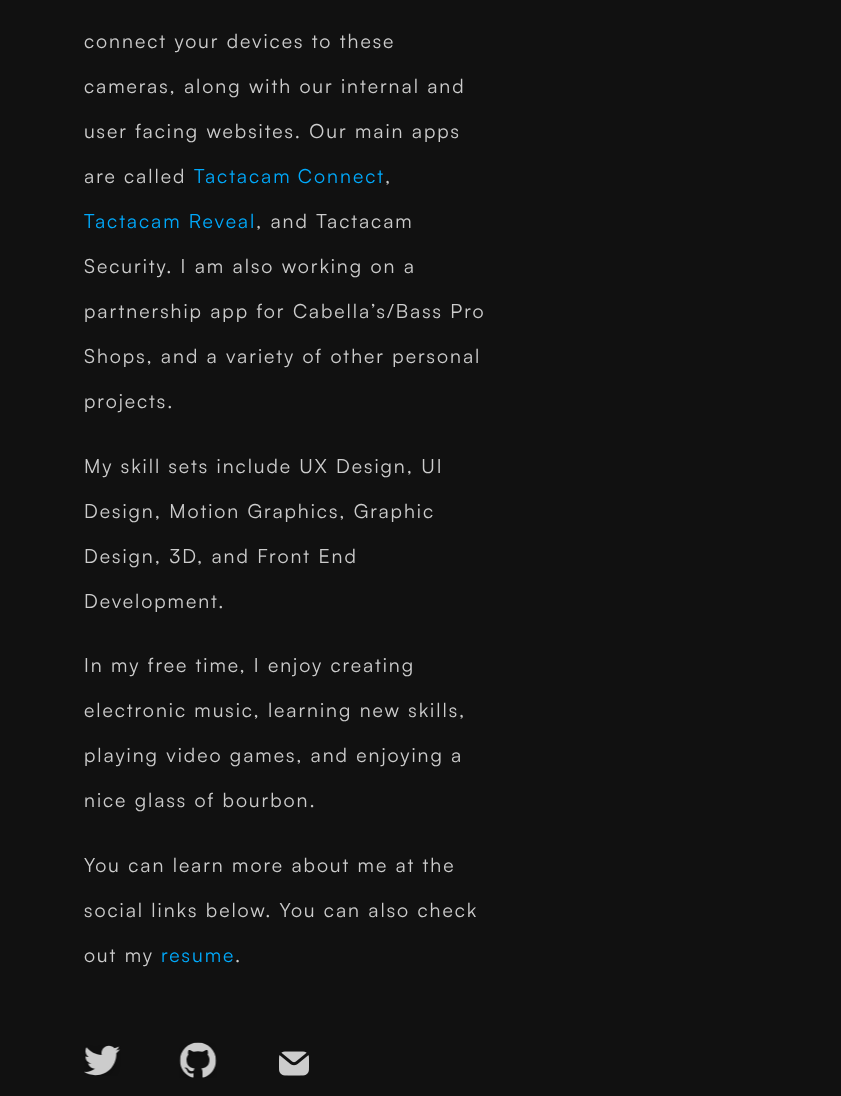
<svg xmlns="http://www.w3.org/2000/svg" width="841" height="1096">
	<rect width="100%" height="100%" fill="#111111" />
	<g font-family="Satoshi" font-size="19.5" letter-spacing="1.95" fill="#CCCCCC">
		<text x="84" y="48">connect your devices to these</text>
		<text x="84" y="93">cameras, along with our internal and</text>
		<text x="84" y="138">user facing websites. Our main apps</text>
		<text x="84" y="183">are called</text>
	</g>
	<text x="194" y="183" word-spacing="-1" font-family="Satoshi" font-size="19.5" letter-spacing="1.95" fill="#00A9FB">Tactacam Connect</text>
	<text x="385" y="183" font-family="Satoshi" font-size="19.5" letter-spacing="1.95" fill="#CCCCCC">,</text>
	<text x="84" y="228" font-family="Satoshi" font-size="19.5" letter-spacing="1.95" fill="#00A9FB">Tactacam Reveal</text>
	<g font-family="Satoshi" font-size="19.5" letter-spacing="1.95" fill="#CCCCCC">
		<text x="256" y="228">, and Tactacam</text>
		<text x="84" y="273">Security. I am also working on a</text>
		<text x="84" y="318">partnership app for Cabella’s/Bass Pro</text>
		<text x="84" y="363">Shops, and a variety of other personal</text>
		<text x="84" y="408">projects.</text>
		<text x="84" y="473">My skill sets include UX Design, UI</text>
		<text x="84" y="518">Design, Motion Graphics, Graphic</text>
		<text x="84" y="563">Design, 3D, and Front End</text>
		<text x="84" y="608">Development.</text>
		<text x="84" y="672">In my free time, I enjoy creating</text>
		<text x="84" y="717">electronic music, learning new skills,</text>
		<text x="84" y="762">playing video games, and enjoying a</text>
		<text x="84" y="807">nice glass of bourbon.</text>
		<text x="84" y="872">You can learn more about me at the</text>
		<text x="84" y="917">social links below. You can also check</text>
		<text x="84" y="962">out my</text>
	</g>
	<text x="161" y="962" font-family="Satoshi" font-size="19.5" letter-spacing="1.95" fill="#00A9FB">resume</text>
	<text x="235" y="962" font-family="Satoshi" font-size="19.5" letter-spacing="1.95" fill="#CCCCCC">.</text>
	<image x="84" y="1045" width="37" height="31" href="assets/img1.png" />
	<image x="179" y="1042" width="38" height="36" href="assets/img2.png" />
	<image x="279" y="1051" width="30" height="25" href="assets/img3.png" />
</svg>
